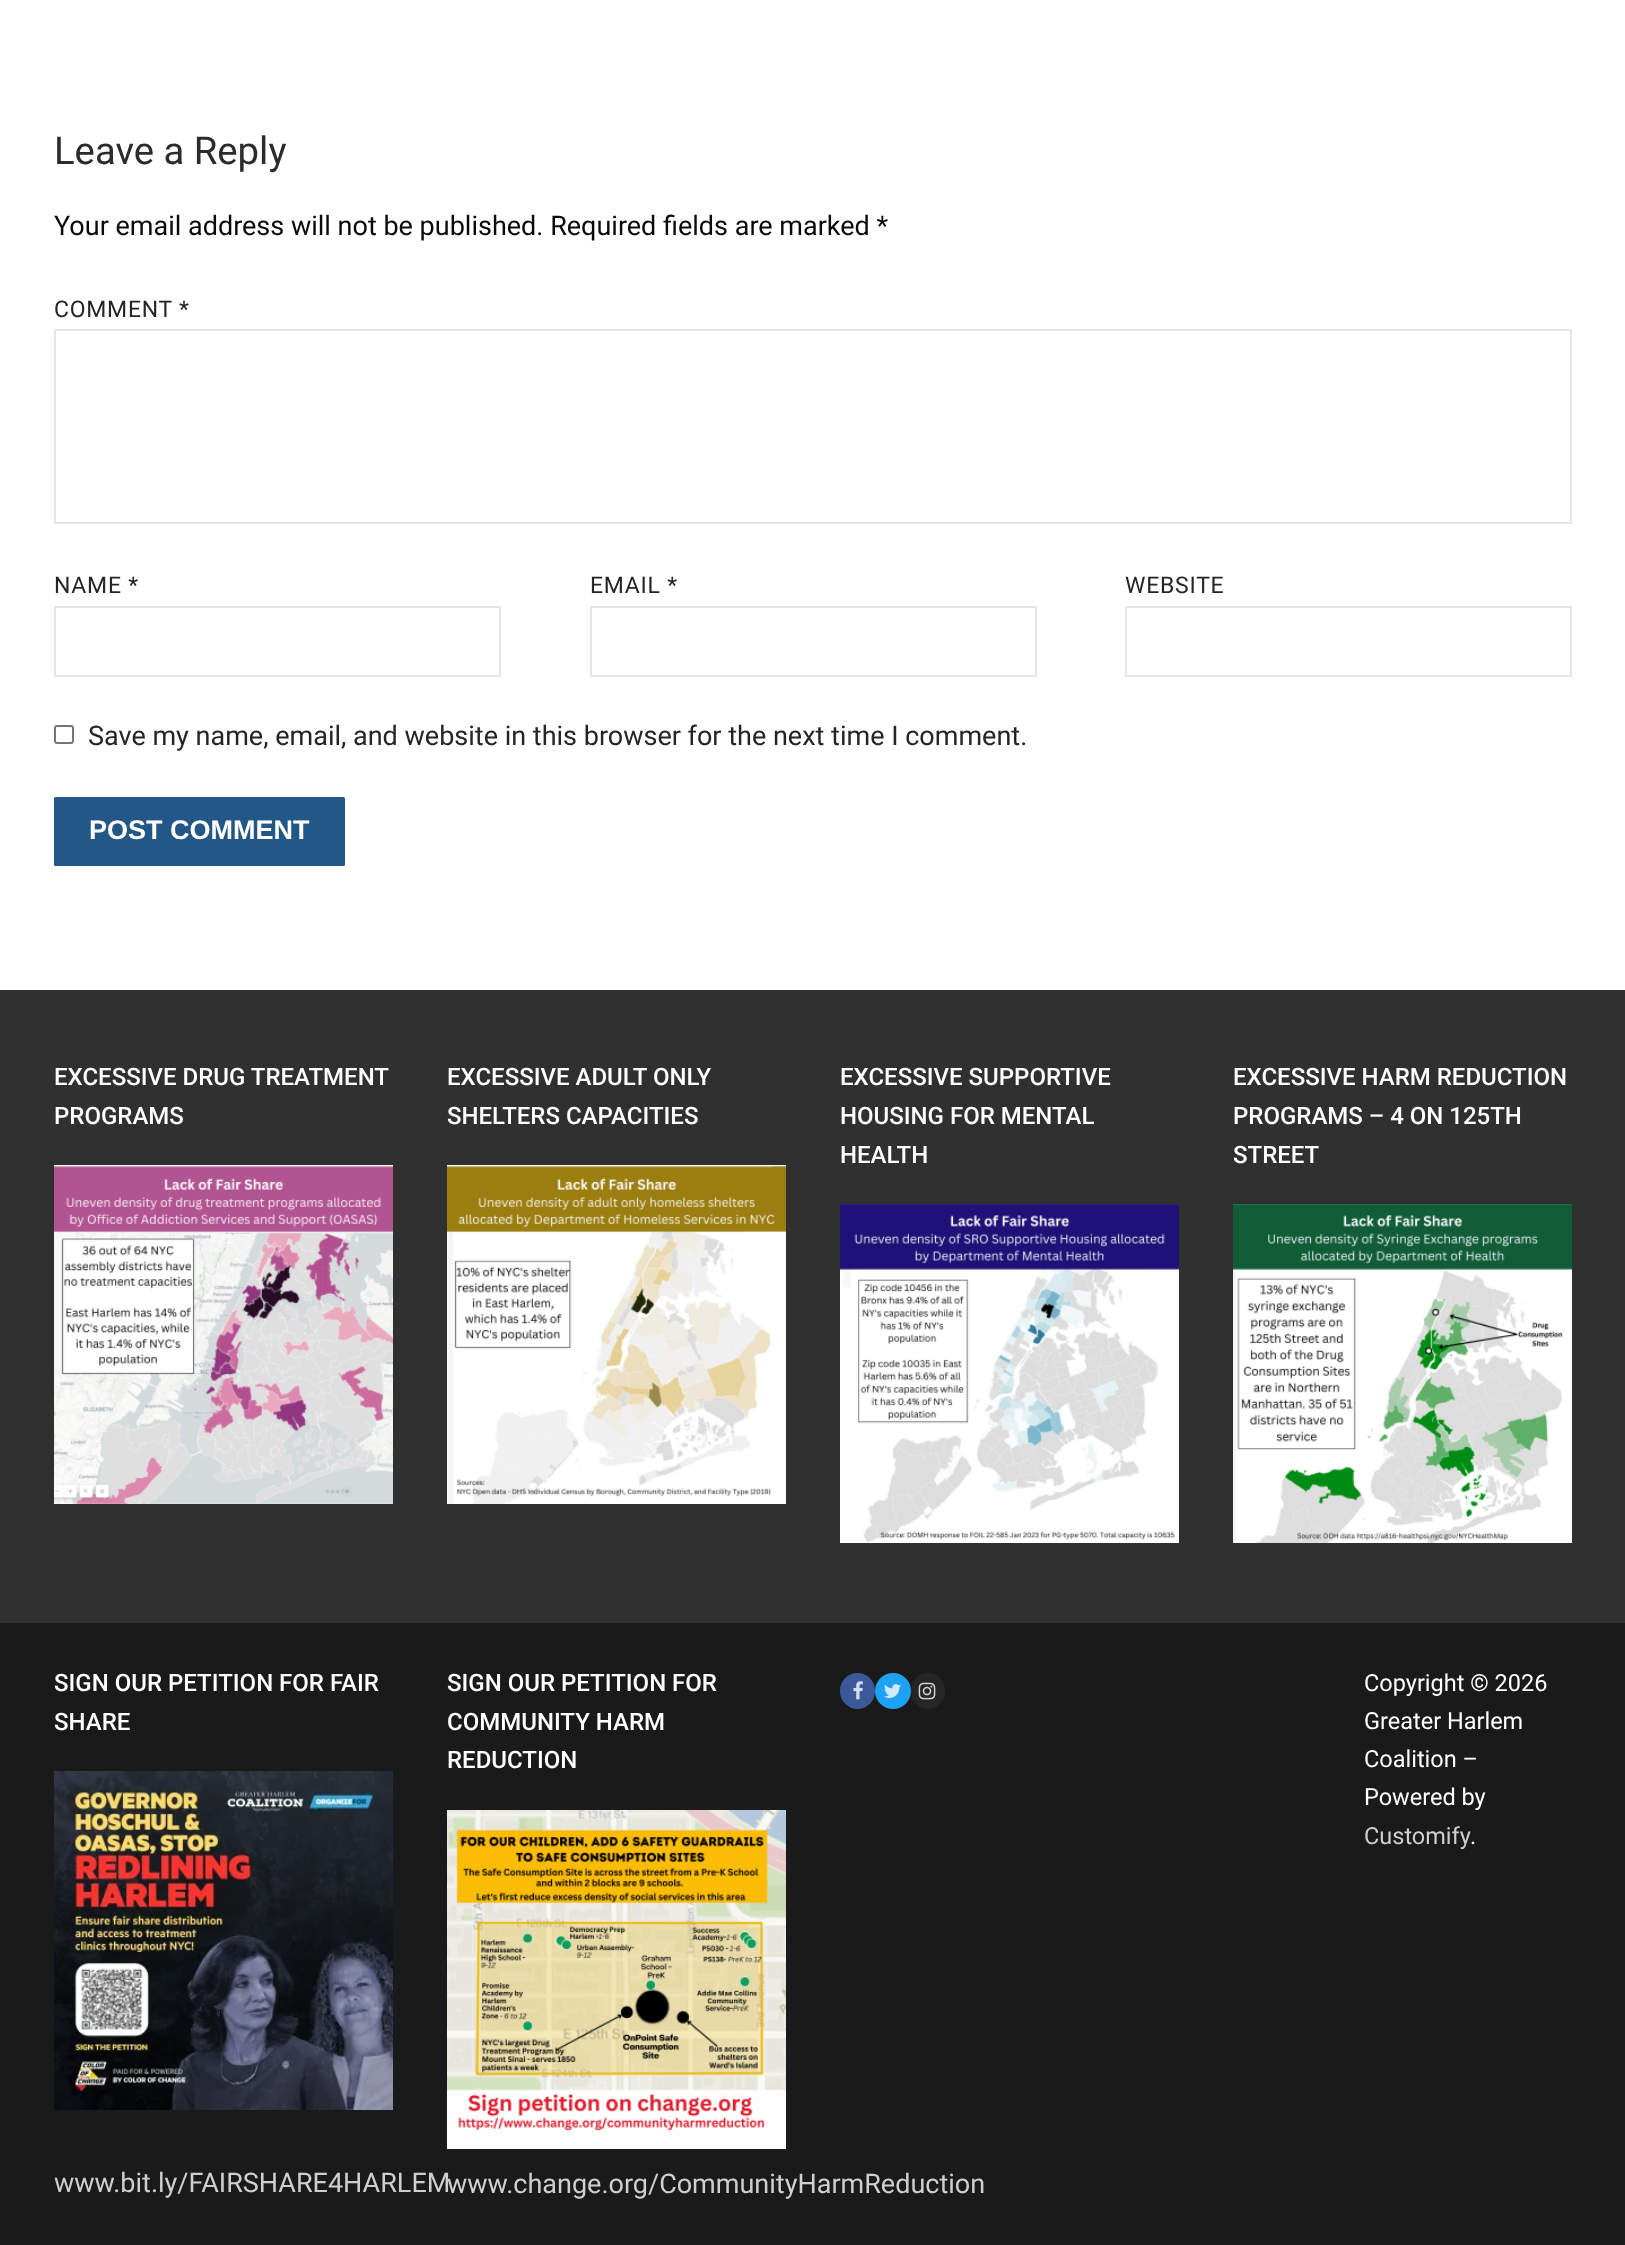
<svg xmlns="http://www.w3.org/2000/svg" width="1625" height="2245">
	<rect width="100%" height="100%" fill="#FFFFFF" />
	<text x="54" y="164" font-family="Roboto" font-size="38.25" fill="#2B2B2B">Leave a Reply</text>
	<text x="54" y="235" font-family="Roboto" font-size="27" fill="#0A0A0A">Your email address will not be published. Required fields are marked *</text>
	<text x="54" y="317" font-family="Roboto" font-size="23" letter-spacing="0.75" fill="#252525">COMMENT *</text>
	<rect x="55" y="330" width="1516" height="193" rx="0.5" fill="none" stroke="#E5E5E5" stroke-width="2" />
	<text x="54" y="593" font-family="Roboto" font-size="23" letter-spacing="0.75" fill="#252525">NAME *</text>
	<rect x="55" y="607" width="445" height="69" rx="0.5" fill="none" stroke="#E5E5E5" stroke-width="2" />
	<text x="590" y="593" font-family="Roboto" font-size="23" letter-spacing="0.75" fill="#252525">EMAIL *</text>
	<rect x="591" y="607" width="445" height="69" rx="0.5" fill="none" stroke="#E5E5E5" stroke-width="2" />
	<text x="1125" y="593" font-family="Roboto" font-size="23" letter-spacing="0.75" fill="#252525">WEBSITE</text>
	<rect x="1126" y="607" width="445" height="69" rx="0.5" fill="none" stroke="#E5E5E5" stroke-width="2" />
	<rect x="55" y="726" width="18" height="17" rx="2" fill="none" stroke="#767676" stroke-width="2" />
	<text x="88" y="745" font-family="Roboto" font-size="27" fill="#252525">Save my name, email, and website in this browser for the next time I comment.</text>
	<rect x="54" y="797" width="291" height="69" rx="1.5" fill="#235787" />
	<text x="89" y="839" font-family="Liberation Sans" font-size="27" font-weight="700" fill="#FFFFFF">POST COMMENT</text>
	<rect x="0" y="990" width="1625" height="633" fill="#303030" />
	<g font-family="Roboto" font-size="24" font-weight="500" fill="#FFFFFF">
		<text x="54" y="1085">EXCESSIVE DRUG TREATMENT</text>
		<text x="54" y="1124">PROGRAMS</text>
	</g>
	<image x="54" y="1165" width="339" height="339" href="assets/img1.png" />
	<g font-family="Roboto" font-size="24" font-weight="500" fill="#FFFFFF">
		<text x="447" y="1085">EXCESSIVE ADULT ONLY</text>
		<text x="447" y="1124">SHELTERS CAPACITIES</text>
	</g>
	<image x="447" y="1165" width="339" height="339" href="assets/img2.png" />
	<g font-family="Roboto" font-size="24" font-weight="500" fill="#FFFFFF">
		<text x="840" y="1085">EXCESSIVE SUPPORTIVE</text>
		<text x="840" y="1124">HOUSING FOR MENTAL</text>
		<text x="840" y="1163">HEALTH</text>
	</g>
	<image x="840" y="1204" width="339" height="339" href="assets/img3.png" />
	<g font-family="Roboto" font-size="24" font-weight="500" fill="#FFFFFF">
		<text x="1233" y="1085">EXCESSIVE HARM REDUCTION</text>
		<text x="1233" y="1124">PROGRAMS – 4 ON 125TH</text>
		<text x="1233" y="1163">STREET</text>
	</g>
	<image x="1233" y="1204" width="339" height="339" href="assets/img4.png" />
	<rect x="0" y="1623" width="1625" height="622" fill="#1A1A1A" />
	<g font-family="Roboto" font-size="24" font-weight="500" fill="#FFFFFF">
		<text x="54" y="1691">SIGN OUR PETITION FOR FAIR</text>
		<text x="54" y="1730">SHARE</text>
	</g>
	<image x="54" y="1771" width="339" height="339" href="assets/img5.png" />
	<text x="54" y="2192" font-family="Roboto" font-size="27" fill="#CFCFCF">www.bit.ly/FAIRSHARE4HARLEM</text>
	<g font-family="Roboto" font-size="24" font-weight="500" fill="#FFFFFF">
		<text x="447" y="1691">SIGN OUR PETITION FOR</text>
		<text x="447" y="1730">COMMUNITY HARM</text>
		<text x="447" y="1768">REDUCTION</text>
	</g>
	<image x="447" y="1810" width="339" height="339" href="assets/img6.png" />
	<text x="447" y="2193" font-family="Roboto" font-size="27" fill="#CFCFCF">www.change.org/CommunityHarmReduction</text>
	<rect x="840" y="1673" width="35" height="36" rx="17.5" fill="#3B5998" />
	<image x="853" y="1681" width="10" height="19" href="assets/img7.png" />
	<circle cx="893" cy="1691" r="18" fill="#1DA1F2" />
	<image x="884" y="1684" width="17" height="14" href="assets/img8.png" />
	<rect x="911" y="1673" width="34" height="36" rx="17" fill="#262626" />
	<image x="918" y="1682" width="18" height="18" href="assets/img9.png" />
	<g font-family="Roboto" font-size="23.5" fill="#FFFFFF">
		<text x="1364" y="1691">Copyright © 2026</text>
		<text x="1364" y="1729">Greater Harlem</text>
		<text x="1364" y="1767">Coalition –</text>
		<text x="1364" y="1805">Powered by</text>
	</g>
	<text x="1364" y="1844" font-family="Roboto" font-size="23.5" fill="#CFCFCF">Customify</text>
	<text x="1470" y="1844" font-family="Roboto" font-size="23.5" fill="#FFFFFF">.</text>
</svg>
